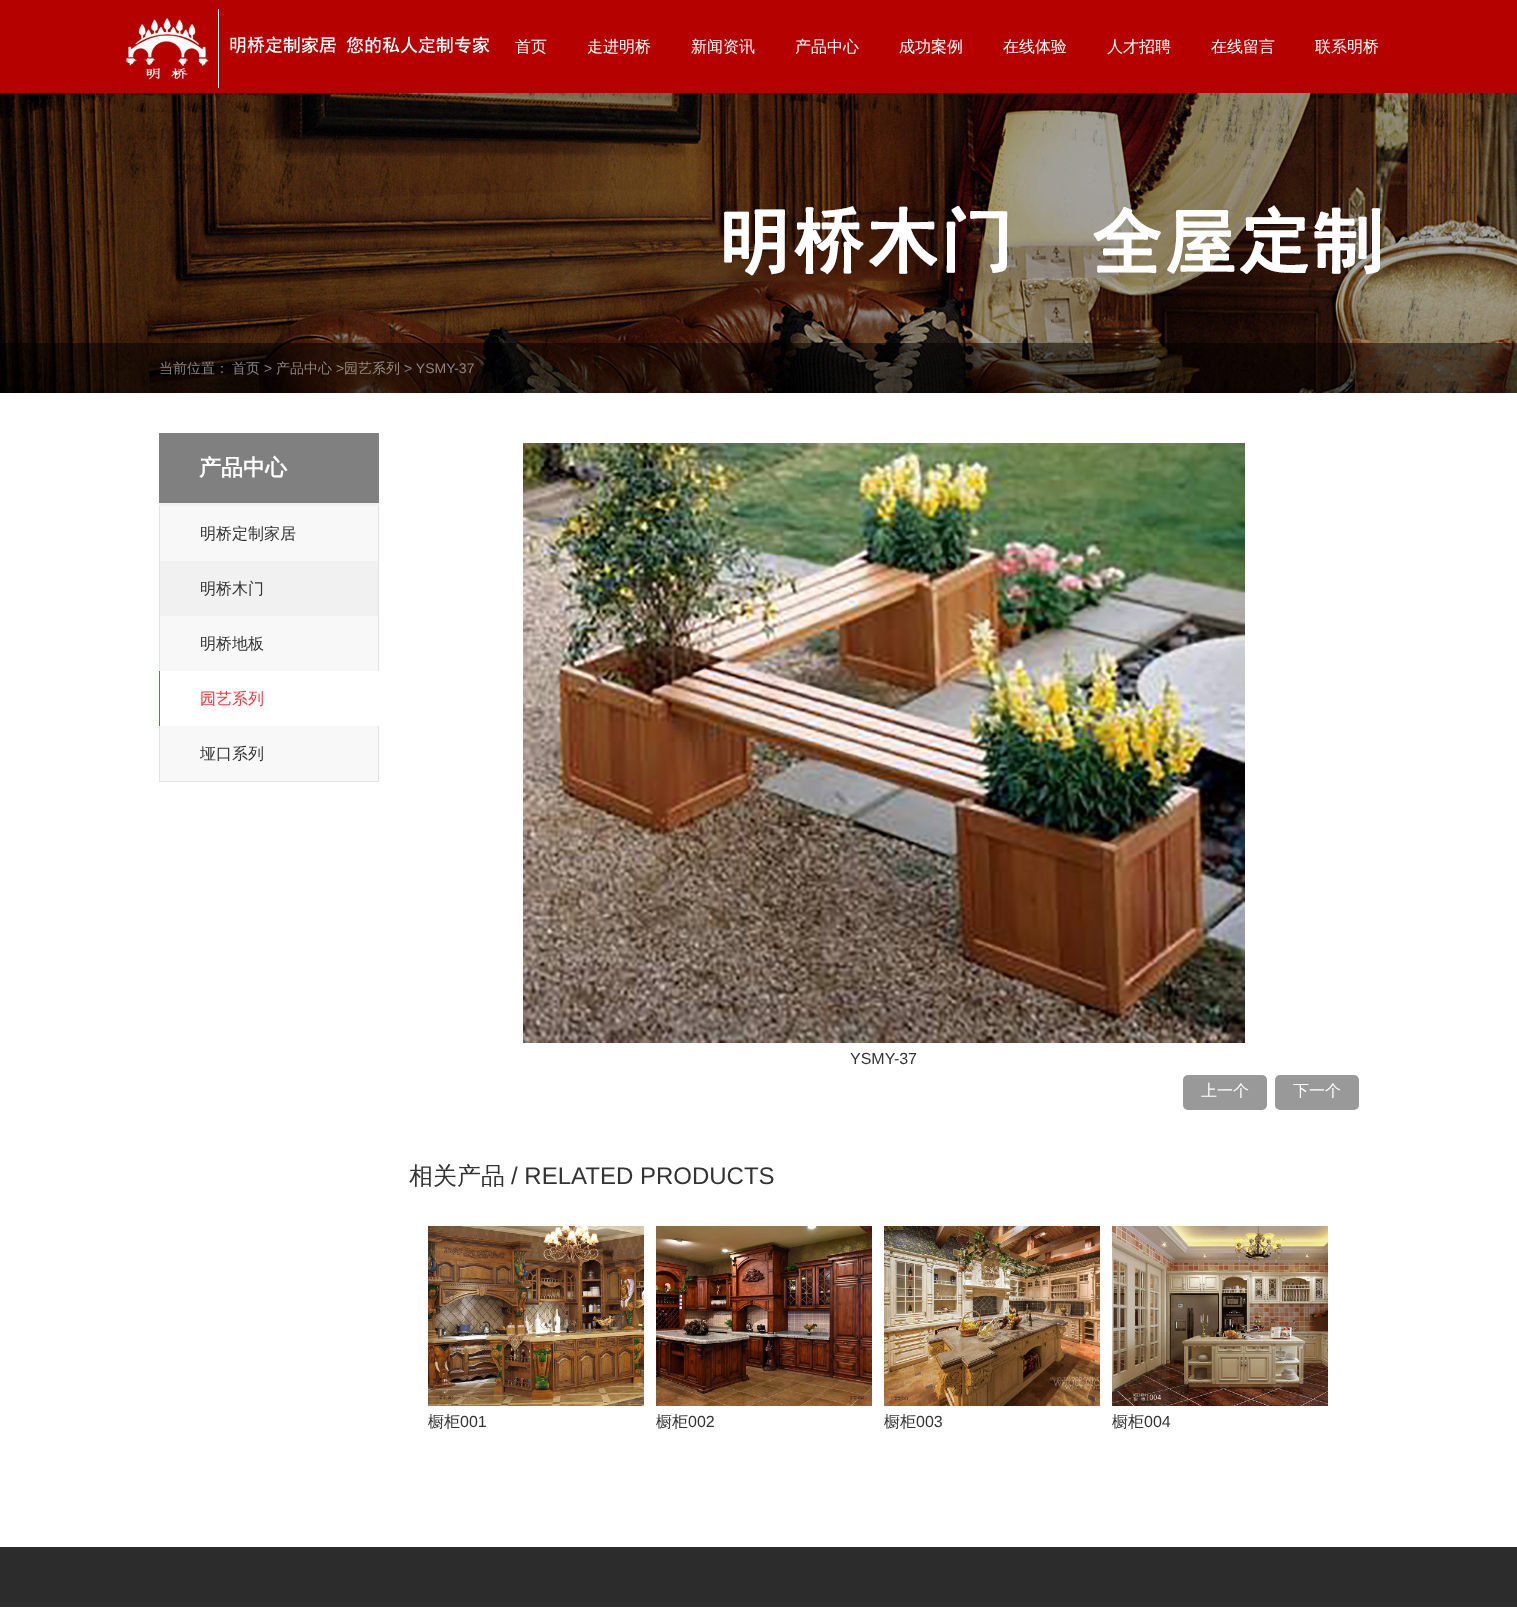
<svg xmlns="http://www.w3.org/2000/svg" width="1517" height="1619">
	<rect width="100%" height="100%" fill="#FFFFFF" />
	<rect x="0" y="0" width="1517" height="93" fill="#B50100" />
	<image x="125" y="9" width="365" height="79" href="assets/img1.png" />
	<g font-family="WenQuanYi Zen Hei" font-size="16" font-weight="500" fill="#FFFFFF">
		<text x="515" y="52">首页</text>
		<text x="587" y="52">走进明桥</text>
		<text x="691" y="52">新闻资讯</text>
		<text x="795" y="52">产品中心</text>
		<text x="899" y="52">成功案例</text>
		<text x="1003" y="52">在线体验</text>
		<text x="1107" y="52">人才招聘</text>
		<text x="1211" y="52">在线留言</text>
		<text x="1315" y="52">联系明桥</text>
	</g>
	<image x="0" y="93" width="1517" height="300" href="assets/img2.png" />
	<rect x="0" y="343" width="1517" height="50" fill="#000000" fill-opacity="0.5" />
	<g font-family="WenQuanYi Zen Hei" font-size="14" font-weight="500" fill="#878381">
		<text x="159" y="373">当前位置：</text>
		<text x="232" y="373">首页</text>
	</g>
	<text x="264" y="373" font-family="Liberation Sans" font-size="14" fill="#878381">&gt;</text>
	<text x="276" y="373" font-family="WenQuanYi Zen Hei" font-size="14" font-weight="500" fill="#8E8581">产品中心</text>
	<text x="336" y="373" font-family="Liberation Sans" font-size="14" fill="#948982">&gt;</text>
	<text x="344" y="373" font-family="WenQuanYi Zen Hei" font-size="14" font-weight="500" fill="#948982">园艺系列</text>
	<text x="404" y="373" font-family="Liberation Sans" font-size="14" fill="#8E8581">&gt; YSMY-37</text>
	<rect x="159" y="781" width="220" height="1" fill="#E2E2E2" />
	<rect x="159" y="433" width="220" height="70" fill="#808080" />
	<rect x="159" y="503" width="220" height="3" fill="#F1F1F1" />
	<text x="199" y="475" font-family="WenQuanYi Zen Hei" font-size="22" font-weight="700" fill="#FFFFFF">产品中心</text>
	<rect x="160" y="506" width="218" height="55" fill="#F8F8F8" />
	<rect x="378" y="506" width="1" height="165" fill="#E2E2E2" />
	<rect x="159" y="506" width="1" height="165" fill="#E2E2E2" />
	<text x="200" y="539" font-family="WenQuanYi Zen Hei" font-size="16" font-weight="500" fill="#333333">明桥定制家居</text>
	<rect x="160" y="561" width="218" height="55" fill="#F1F1F1" />
	<text x="200" y="594" font-family="WenQuanYi Zen Hei" font-size="16" font-weight="500" fill="#333333">明桥木门</text>
	<rect x="160" y="616" width="218" height="55" fill="#F8F8F8" />
	<text x="200" y="649" font-family="WenQuanYi Zen Hei" font-size="16" font-weight="500" fill="#333333">明桥地板</text>
	<rect x="159" y="671" width="1" height="55" fill="#FF343F" />
	<text x="200" y="704" font-family="WenQuanYi Zen Hei" font-size="16" font-weight="500" fill="#FE343F">园艺系列</text>
	<rect x="160" y="726" width="218" height="55" fill="#F8F8F8" />
	<rect x="378" y="726" width="1" height="55" fill="#E2E2E2" />
	<rect x="159" y="726" width="1" height="55" fill="#E2E2E2" />
	<text x="200" y="759" font-family="WenQuanYi Zen Hei" font-size="16" font-weight="500" fill="#333333">垭口系列</text>
	<image x="523" y="443" width="722" height="600" href="assets/img3.png" />
	<text x="850" y="1064" font-family="Liberation Sans" font-size="16" fill="#333333">YSMY-37</text>
	<rect x="1183" y="1075" width="84" height="35" rx="5" fill="#999999" />
	<text x="1201" y="1096" font-family="WenQuanYi Zen Hei" font-size="16" font-weight="500" fill="#FFFFFF">上一个</text>
	<rect x="1275" y="1075" width="84" height="35" rx="5" fill="#999999" />
	<text x="1293" y="1096" font-family="WenQuanYi Zen Hei" font-size="16" font-weight="500" fill="#FFFFFF">下一个</text>
	<text x="409" y="1184" font-family="WenQuanYi Zen Hei" font-size="24" font-weight="500" fill="#333333">相关产品</text>
	<text x="511" y="1184" font-family="Liberation Sans" font-size="24" fill="#333333">/ RELATED PRODUCTS</text>
	<image x="428" y="1226" width="216" height="180" href="assets/img4.png" />
	<text x="428" y="1427" font-family="WenQuanYi Zen Hei" font-size="16" font-weight="500" fill="#333333">橱柜</text>
	<text x="460" y="1427" font-family="Liberation Sans" font-size="16" fill="#333333">001</text>
	<image x="656" y="1226" width="216" height="180" href="assets/img5.png" />
	<text x="656" y="1427" font-family="WenQuanYi Zen Hei" font-size="16" font-weight="500" fill="#333333">橱柜</text>
	<text x="688" y="1427" font-family="Liberation Sans" font-size="16" fill="#333333">002</text>
	<image x="884" y="1226" width="216" height="180" href="assets/img6.png" />
	<text x="884" y="1427" font-family="WenQuanYi Zen Hei" font-size="16" font-weight="500" fill="#333333">橱柜</text>
	<text x="916" y="1427" font-family="Liberation Sans" font-size="16" fill="#333333">003</text>
	<image x="1112" y="1226" width="216" height="180" href="assets/img7.png" />
	<text x="1112" y="1427" font-family="WenQuanYi Zen Hei" font-size="16" font-weight="500" fill="#333333">橱柜</text>
	<text x="1144" y="1427" font-family="Liberation Sans" font-size="16" fill="#333333">004</text>
	<rect x="0" y="1547" width="1517" height="60" fill="#2C2C2C" />
</svg>
